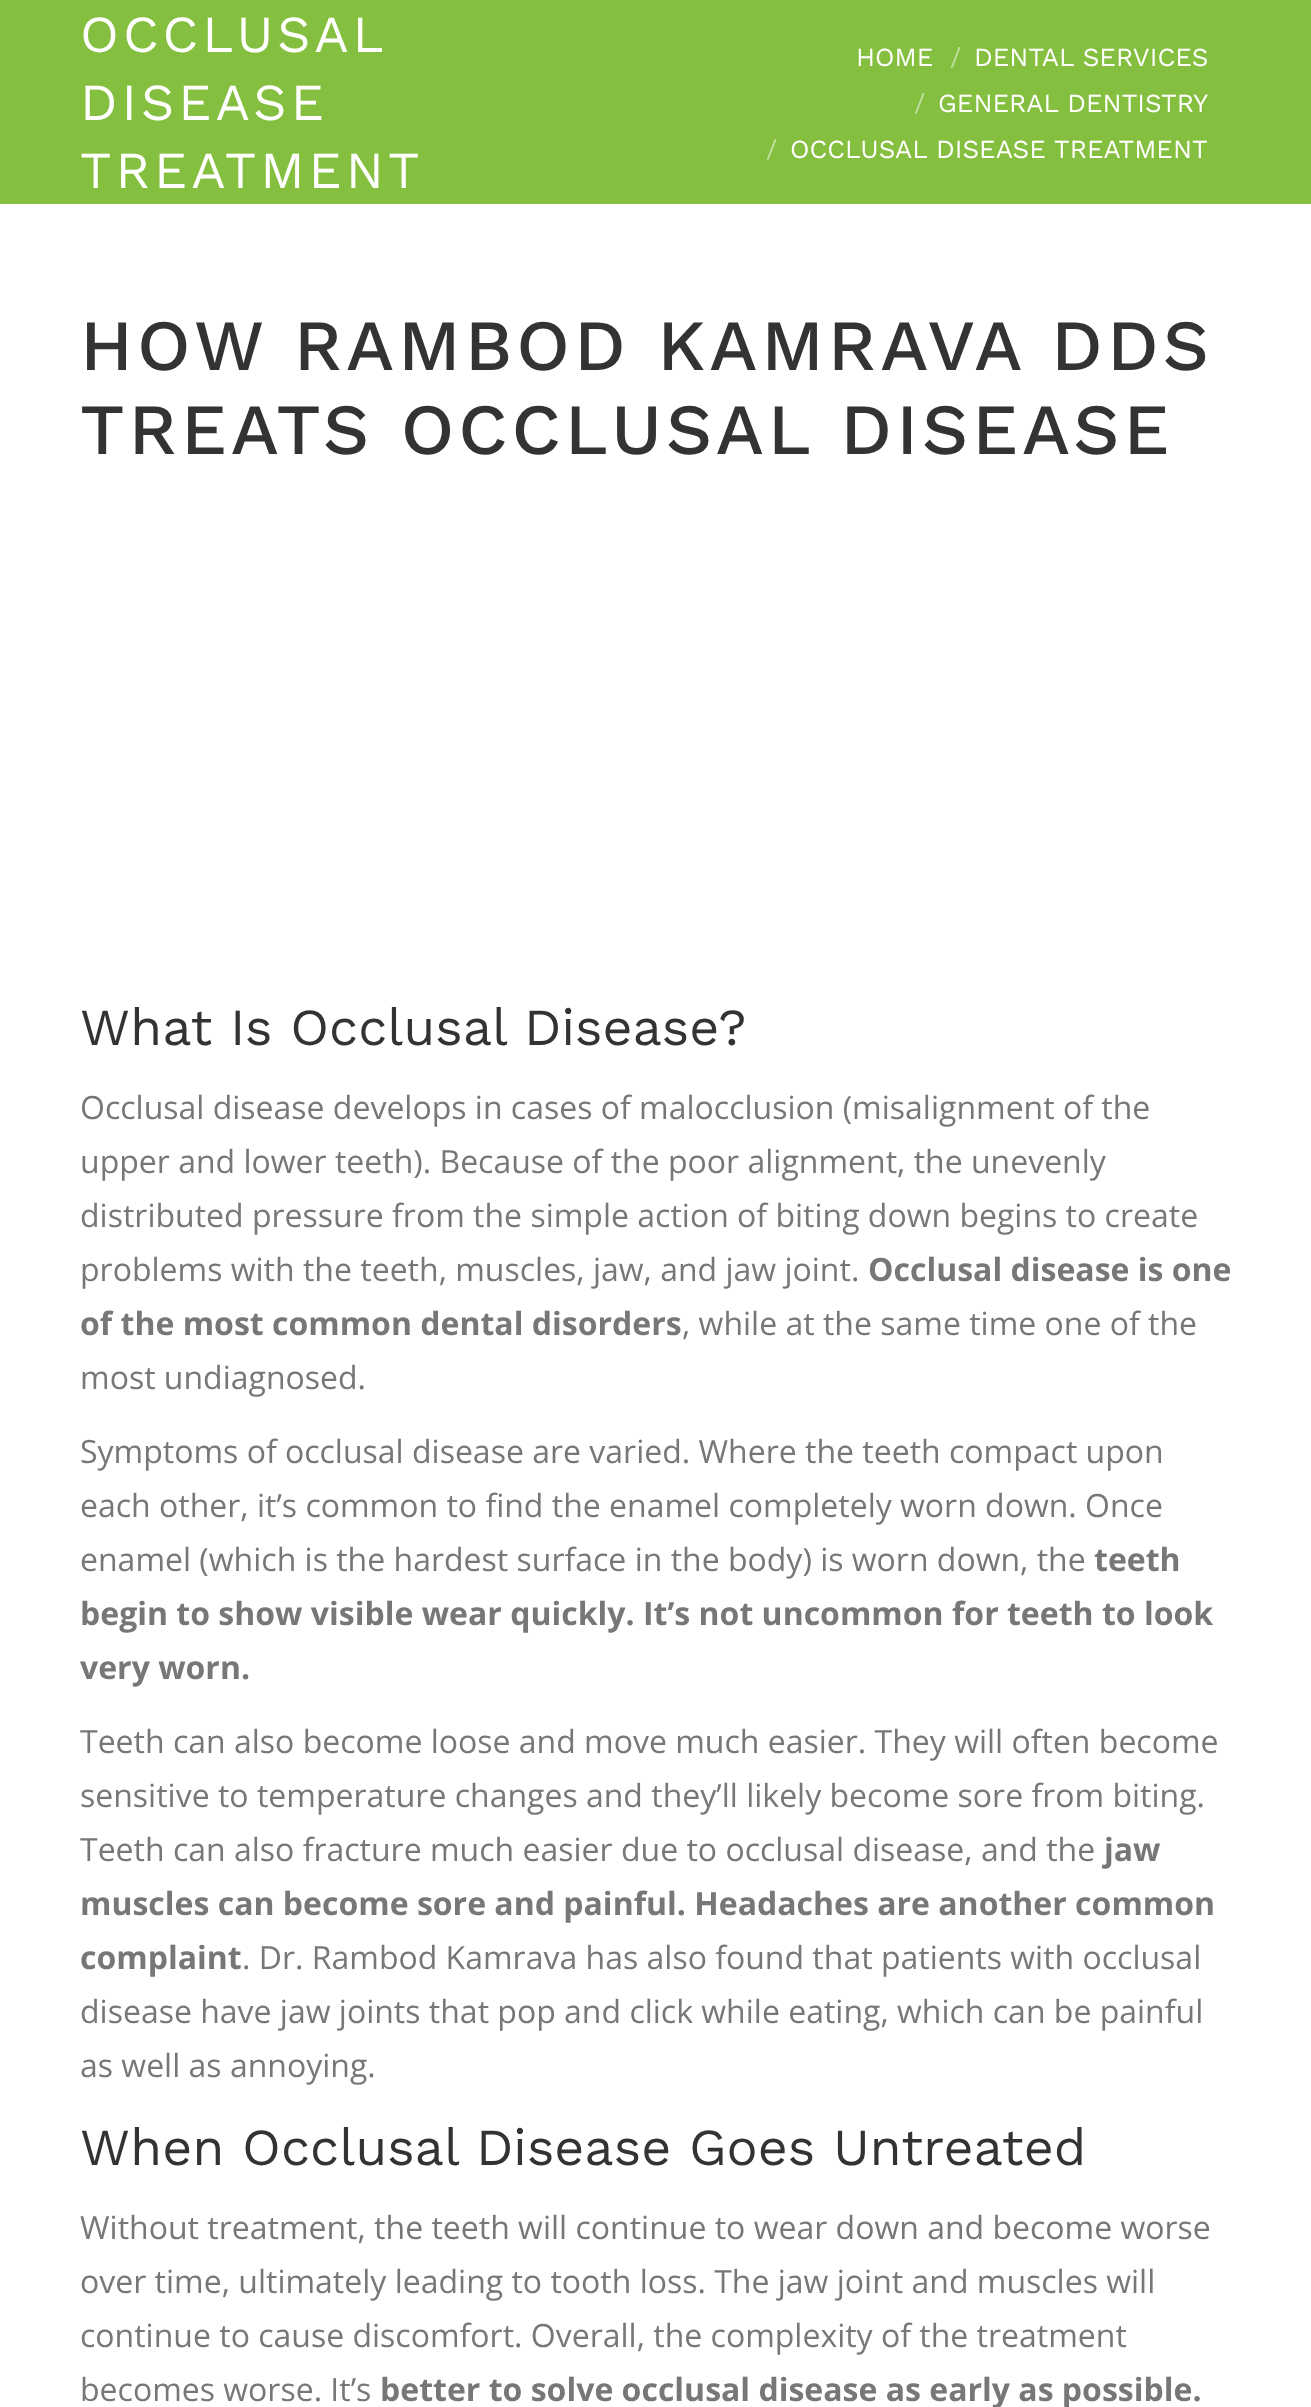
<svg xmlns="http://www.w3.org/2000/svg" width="1311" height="2407">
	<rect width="100%" height="100%" fill="#FFFFFF" />
	<rect x="0" y="0" width="1311" height="204" fill="#85BF3F" />
	<g font-family="Work Sans" font-size="52" letter-spacing="4" fill="#FFFFFF">
		<text x="80" y="52">OCCLUSAL</text>
		<text x="80" y="120">DISEASE</text>
		<text x="80" y="188">TREATMENT</text>
	</g>
	<text x="856" y="66" font-family="Work Sans" font-size="26" fill="#FFFFFF">HOME</text>
	<text x="950" y="66" font-family="Work Sans" font-size="26" fill="#C2DF9F">/</text>
	<text x="974" y="66" font-family="Work Sans" font-size="26" fill="#FFFFFF">DENTAL SERVICES</text>
	<text x="914" y="112" font-family="Work Sans" font-size="26" fill="#C2DF9F">/</text>
	<text x="938" y="112" font-family="Work Sans" font-size="26" fill="#FFFFFF">GENERAL DENTISTRY</text>
	<text x="766" y="158" font-family="Work Sans" font-size="26" fill="#C2DF9F">/</text>
	<text x="790" y="158" font-family="Work Sans" font-size="26" fill="#FFFFFF">OCCLUSAL DISEASE TREATMENT</text>
	<g font-family="Work Sans" font-size="72" font-weight="500" letter-spacing="4" fill="#333333">
		<text x="80" y="370">HOW RAMBOD KAMRAVA DDS</text>
		<text x="80" y="454">TREATS OCCLUSAL DISEASE</text>
	</g>
	<text x="80" y="1045" font-family="Work Sans" font-size="52" fill="#333333">What Is Occlusal Disease?</text>
	<g font-family="Open Sans" font-size="32" fill="#777777">
		<text x="80" y="1119">Occlusal disease develops in cases of malocclusion (misalignment of the</text>
		<text x="80" y="1173">upper and lower teeth). Because of the poor alignment, the unevenly</text>
		<text x="80" y="1227">distributed pressure from the simple action of biting down begins to create</text>
		<text x="80" y="1281">problems with the teeth, muscles, jaw, and jaw joint.</text>
	</g>
	<g font-family="Open Sans" font-size="32" font-weight="700" fill="#777777">
		<text x="868" y="1281">Occlusal disease is one</text>
		<text x="80" y="1335">of the most common dental disorders</text>
	</g>
	<g font-family="Open Sans" font-size="32" fill="#777777">
		<text x="682" y="1335">, while at the same time one of the</text>
		<text x="80" y="1389">most undiagnosed.</text>
		<text x="80" y="1463">Symptoms of occlusal disease are varied. Where the teeth compact upon</text>
		<text x="80" y="1517">each other, it’s common to find the enamel completely worn down. Once</text>
		<text x="80" y="1571">enamel (which is the hardest surface in the body) is worn down, the</text>
	</g>
	<g font-family="Open Sans" font-size="32" font-weight="700" fill="#777777">
		<text x="1094" y="1571">teeth</text>
		<text x="80" y="1625">begin to show visible wear quickly. It’s not uncommon for teeth to look</text>
		<text x="80" y="1679">very worn.</text>
	</g>
	<g font-family="Open Sans" font-size="32" fill="#777777">
		<text x="80" y="1753">Teeth can also become loose and move much easier. They will often become</text>
		<text x="80" y="1807">sensitive to temperature changes and they’ll likely become sore from biting.</text>
		<text x="80" y="1861">Teeth can also fracture much easier due to occlusal disease, and the</text>
	</g>
	<g font-family="Open Sans" font-size="32" font-weight="700" fill="#777777">
		<text x="1104" y="1861">jaw</text>
		<text x="80" y="1915">muscles can become sore and painful. Headaches are another common</text>
		<text x="80" y="1969">complaint</text>
	</g>
	<g font-family="Open Sans" font-size="32" fill="#777777">
		<text x="242" y="1969">. Dr. Rambod Kamrava has also found that patients with occlusal</text>
		<text x="80" y="2023">disease have jaw joints that pop and click while eating, which can be painful</text>
		<text x="80" y="2077">as well as annoying.</text>
	</g>
	<text x="80" y="2165" font-family="Work Sans" font-size="52" fill="#333333">When Occlusal Disease Goes Untreated</text>
	<g font-family="Open Sans" font-size="32" fill="#777777">
		<text x="80" y="2239">Without treatment, the teeth will continue to wear down and become worse</text>
		<text x="80" y="2293">over time, ultimately leading to tooth loss. The jaw joint and muscles will</text>
		<text x="80" y="2347">continue to cause discomfort. Overall, the complexity of the treatment</text>
		<text x="80" y="2401">becomes worse. It’s</text>
	</g>
	<text x="380" y="2401" font-family="Open Sans" font-size="32" font-weight="700" fill="#777777">better to solve occlusal disease as early as possible.</text>
</svg>
